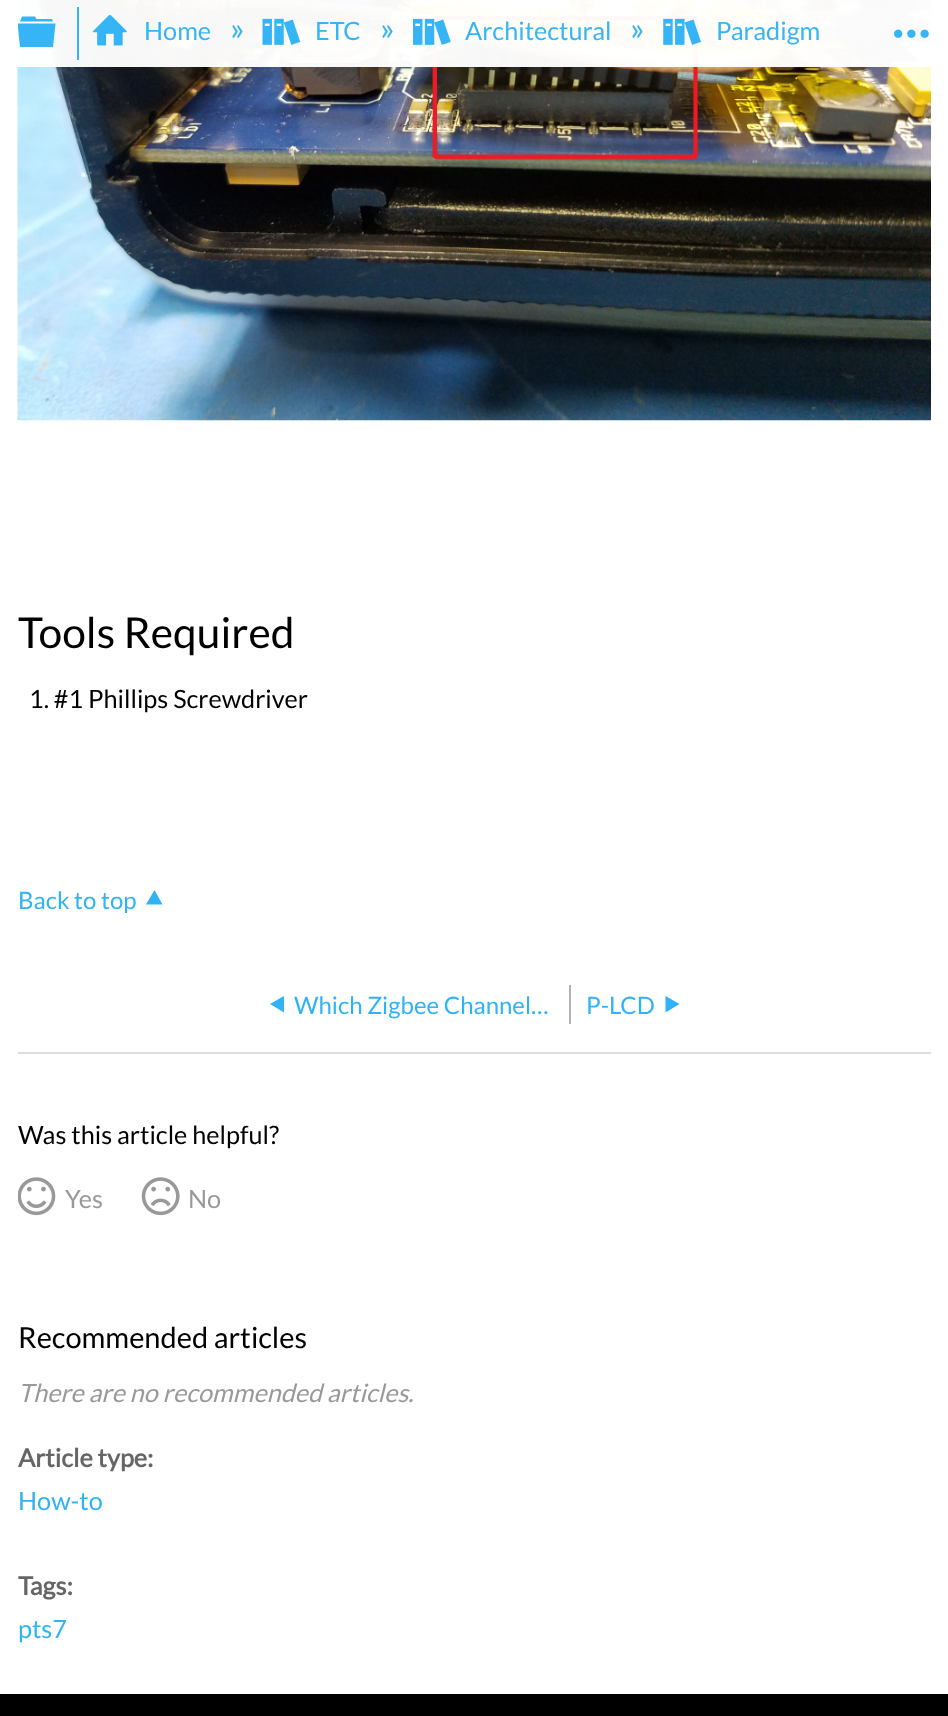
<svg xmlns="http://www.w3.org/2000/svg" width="948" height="1716">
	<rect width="100%" height="100%" fill="#FFFFFF" />
	<image x="17" y="0" width="914" height="421" href="assets/img6.png" />
	<rect x="17" y="0" width="914" height="67" fill="#FFFFFF" fill-opacity="0.97" />
	<path d="M18 28V23.5H55.5L53 47H20ZM52 19H36.5L35 16.5H22L20 21.5H53Z" fill="#30B3F6" fill-opacity="0.97" fill-rule="evenodd" />
	<rect x="77" y="7" width="2" height="53" fill="#36B5F6" />
	<image x="92" y="15" width="35" height="31" href="assets/img1.png" />
	<text x="144" y="40" font-family="Lato" font-size="25.25" fill="#36B5F6">Home</text>
	<text x="230" y="40" font-family="Lato" font-size="32" fill="#36B5F6">»</text>
	<image x="262" y="18" width="39" height="27" href="assets/img2.png" />
	<text x="315" y="40" font-family="Lato" font-size="25.25" fill="#36B5F6">ETC</text>
	<text x="380" y="40" font-family="Lato" font-size="32" fill="#36B5F6">»</text>
	<image x="413" y="18" width="38" height="27" href="assets/img3.png" />
	<text x="465" y="40" font-family="Lato" font-size="25.25" fill="#36B5F6">Architectural</text>
	<text x="630" y="40" font-family="Lato" font-size="32" fill="#36B5F6">»</text>
	<image x="663" y="18" width="38" height="27" href="assets/img4.png" />
	<text x="716" y="40" font-family="Lato" font-size="25.25" fill="#36B5F6">Paradigm</text>
	<image x="894" y="29" width="35" height="9" href="assets/img5.png" />
	<text x="18" y="648" font-family="Lato" font-size="42.5" fill="#000000">Tools Required</text>
	<text x="29" y="708" font-family="Lato" font-size="25.25" fill="#000000">1. #1 Phillips Screwdriver</text>
	<rect x="18" y="1052" width="913" height="2" fill="#DDDDDD" />
	<text x="18" y="909" font-family="Lato" font-size="24" fill="#30B3F6">Back to top</text>
	<path d="M146 904.5H162.5L154.5 890Z" fill="#30B3F6" />
	<rect x="569" y="985" width="2" height="39" fill="#B4B4B4" />
	<path d="M284 996V1012.5L270 1004Z" fill="#30B3F6" />
	<g font-family="Lato" font-size="24" fill="#30B3F6">
		<text x="294" y="1014">Which Zigbee Channel…</text>
		<text x="586" y="1014">P-LCD</text>
	</g>
	<path d="M665.5 996V1012.5L679.5 1004Z" fill="#30B3F6" />
	<text x="18" y="1144" font-family="Lato" font-size="25.25" fill="#000000">Was this article helpful?</text>
	<image x="18" y="1177" width="38" height="39" href="assets/img7.png" />
	<text x="65" y="1208" font-family="Lato" font-size="25.25" fill="#999999">Yes</text>
	<image x="141" y="1177" width="39" height="39" href="assets/img8.png" />
	<text x="188" y="1208" font-family="Lato" font-size="25.25" fill="#999999">No</text>
	<text x="18" y="1348" font-family="Lato" font-size="29" fill="#000000">Recommended articles</text>
	<text x="18" y="1402" font-family="Lato" font-size="25.25" font-style="italic" fill="#999999">There are no recommended articles.</text>
	<text x="18" y="1467" font-family="Lato" font-size="25.25" font-weight="700" fill="#666666">Article type:</text>
	<text x="18" y="1510" font-family="Lato" font-size="25.25" fill="#30B3F6">How-to</text>
	<text x="18" y="1595" font-family="Lato" font-size="25.25" font-weight="700" fill="#666666">Tags:</text>
	<text x="18" y="1638" font-family="Lato" font-size="25.25" fill="#30B3F6">pts7</text>
	<rect x="0" y="1694" width="948" height="22" fill="#000000" />
</svg>
